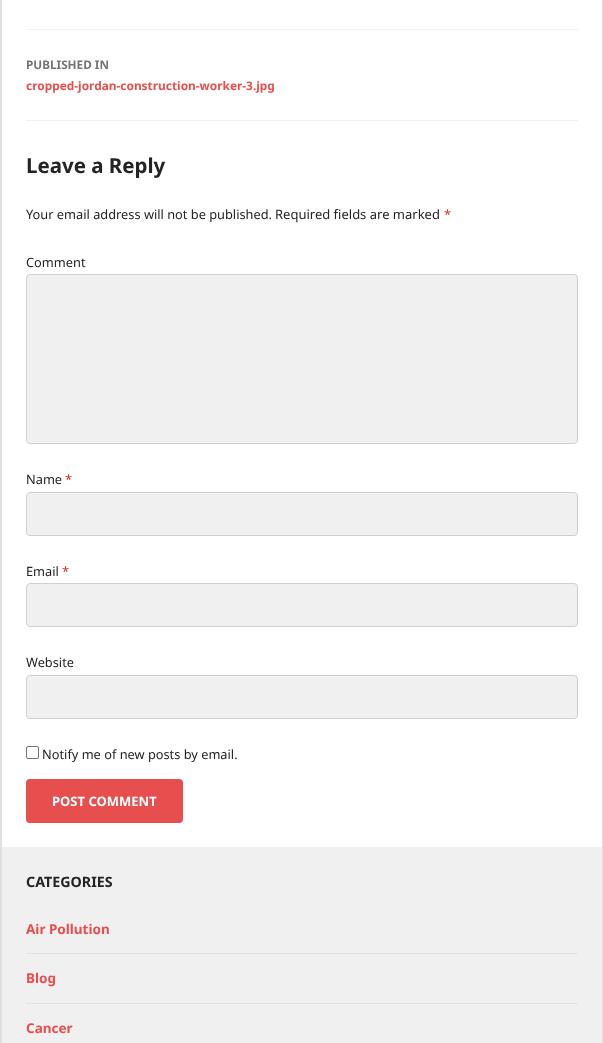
<svg xmlns="http://www.w3.org/2000/svg" width="603" height="1043">
	<rect width="100%" height="100%" fill="#E1DFDF" />
	<rect x="2" y="0" width="600" height="847" fill="#FFFFFF" />
	<rect x="26" y="29" width="552" height="1" fill="#F1F0F0" />
	<rect x="26" y="120" width="552" height="1" fill="#F1F0F0" />
	<text x="26" y="69" font-family="Noto Sans" font-size="11.75" font-weight="700" fill="#757575">PUBLISHED IN</text>
	<text x="26" y="90" font-family="Noto Sans" font-size="11.9" font-weight="700" fill="#E74F4E">cropped-jordan-construction-worker-3.jpg</text>
	<text x="26" y="173" font-family="Noto Sans" font-size="20.5" font-weight="700" fill="#242424">Leave a Reply</text>
	<text x="26" y="219" font-family="Noto Sans" font-size="12.8" fill="#242424">Your email address will not be published.</text>
	<text x="275" y="219" font-family="Noto Sans" font-size="13" fill="#242424">Required fields are marked</text>
	<text x="444" y="219" font-family="Noto Sans" font-size="12.8" fill="#D9321F">*</text>
	<text x="26" y="267" font-family="Noto Sans" font-size="12.8" fill="#242424">Comment</text>
	<rect x="26.5" y="274.5" width="551" height="169" rx="3.5" fill="#F1F0F0" stroke="#D2CFCF" />
	<text x="26" y="484" font-family="Noto Sans" font-size="12.8" fill="#242424">Name</text>
	<text x="65" y="484" font-family="Noto Sans" font-size="13" fill="#D9321F">*</text>
	<rect x="26.5" y="492.5" width="551" height="43" rx="3.5" fill="#F1F0F0" stroke="#D2CFCF" />
	<text x="26" y="576" font-family="Noto Sans" font-size="12.8" fill="#242424">Email</text>
	<text x="62" y="576" font-family="Noto Sans" font-size="13" fill="#D9321F">*</text>
	<rect x="26.5" y="583.5" width="551" height="43" rx="3.5" fill="#F1F0F0" stroke="#D2CFCF" />
	<text x="26" y="667" font-family="Noto Sans" font-size="12.8" fill="#242424">Website</text>
	<rect x="26.5" y="675.5" width="551" height="43" rx="3.5" fill="#F1F0F0" stroke="#D2CFCF" />
	<rect x="26.5" y="746.5" width="12" height="12" rx="1.5" fill="none" stroke="#767676" />
	<text x="42" y="759" font-family="Noto Sans" font-size="12.8" fill="#242424">Notify me of new posts by email.</text>
	<rect x="26" y="779" width="157" height="44" rx="4" fill="#E74F4E" />
	<text x="52" y="806" font-family="Noto Sans" font-size="13" font-weight="700" fill="#FFFFFF">POST COMMENT</text>
	<rect x="2" y="847" width="600" height="196" fill="#F1F0F0" />
	<text x="26" y="887" font-family="Noto Sans" font-size="14.25" font-weight="700" fill="#242424">CATEGORIES</text>
	<text x="26" y="934" font-family="Noto Sans" font-size="13.5" font-weight="700" fill="#E74F4E">Air Pollution</text>
	<rect x="26" y="953" width="552" height="1" fill="#E1DFDF" />
	<text x="26" y="983" font-family="Noto Sans" font-size="13.5" font-weight="700" fill="#E74F4E">Blog</text>
	<rect x="26" y="1003" width="552" height="1" fill="#E1DFDF" />
	<text x="26" y="1033" font-family="Noto Sans" font-size="13.5" font-weight="700" fill="#E74F4E">Cancer</text>
</svg>
